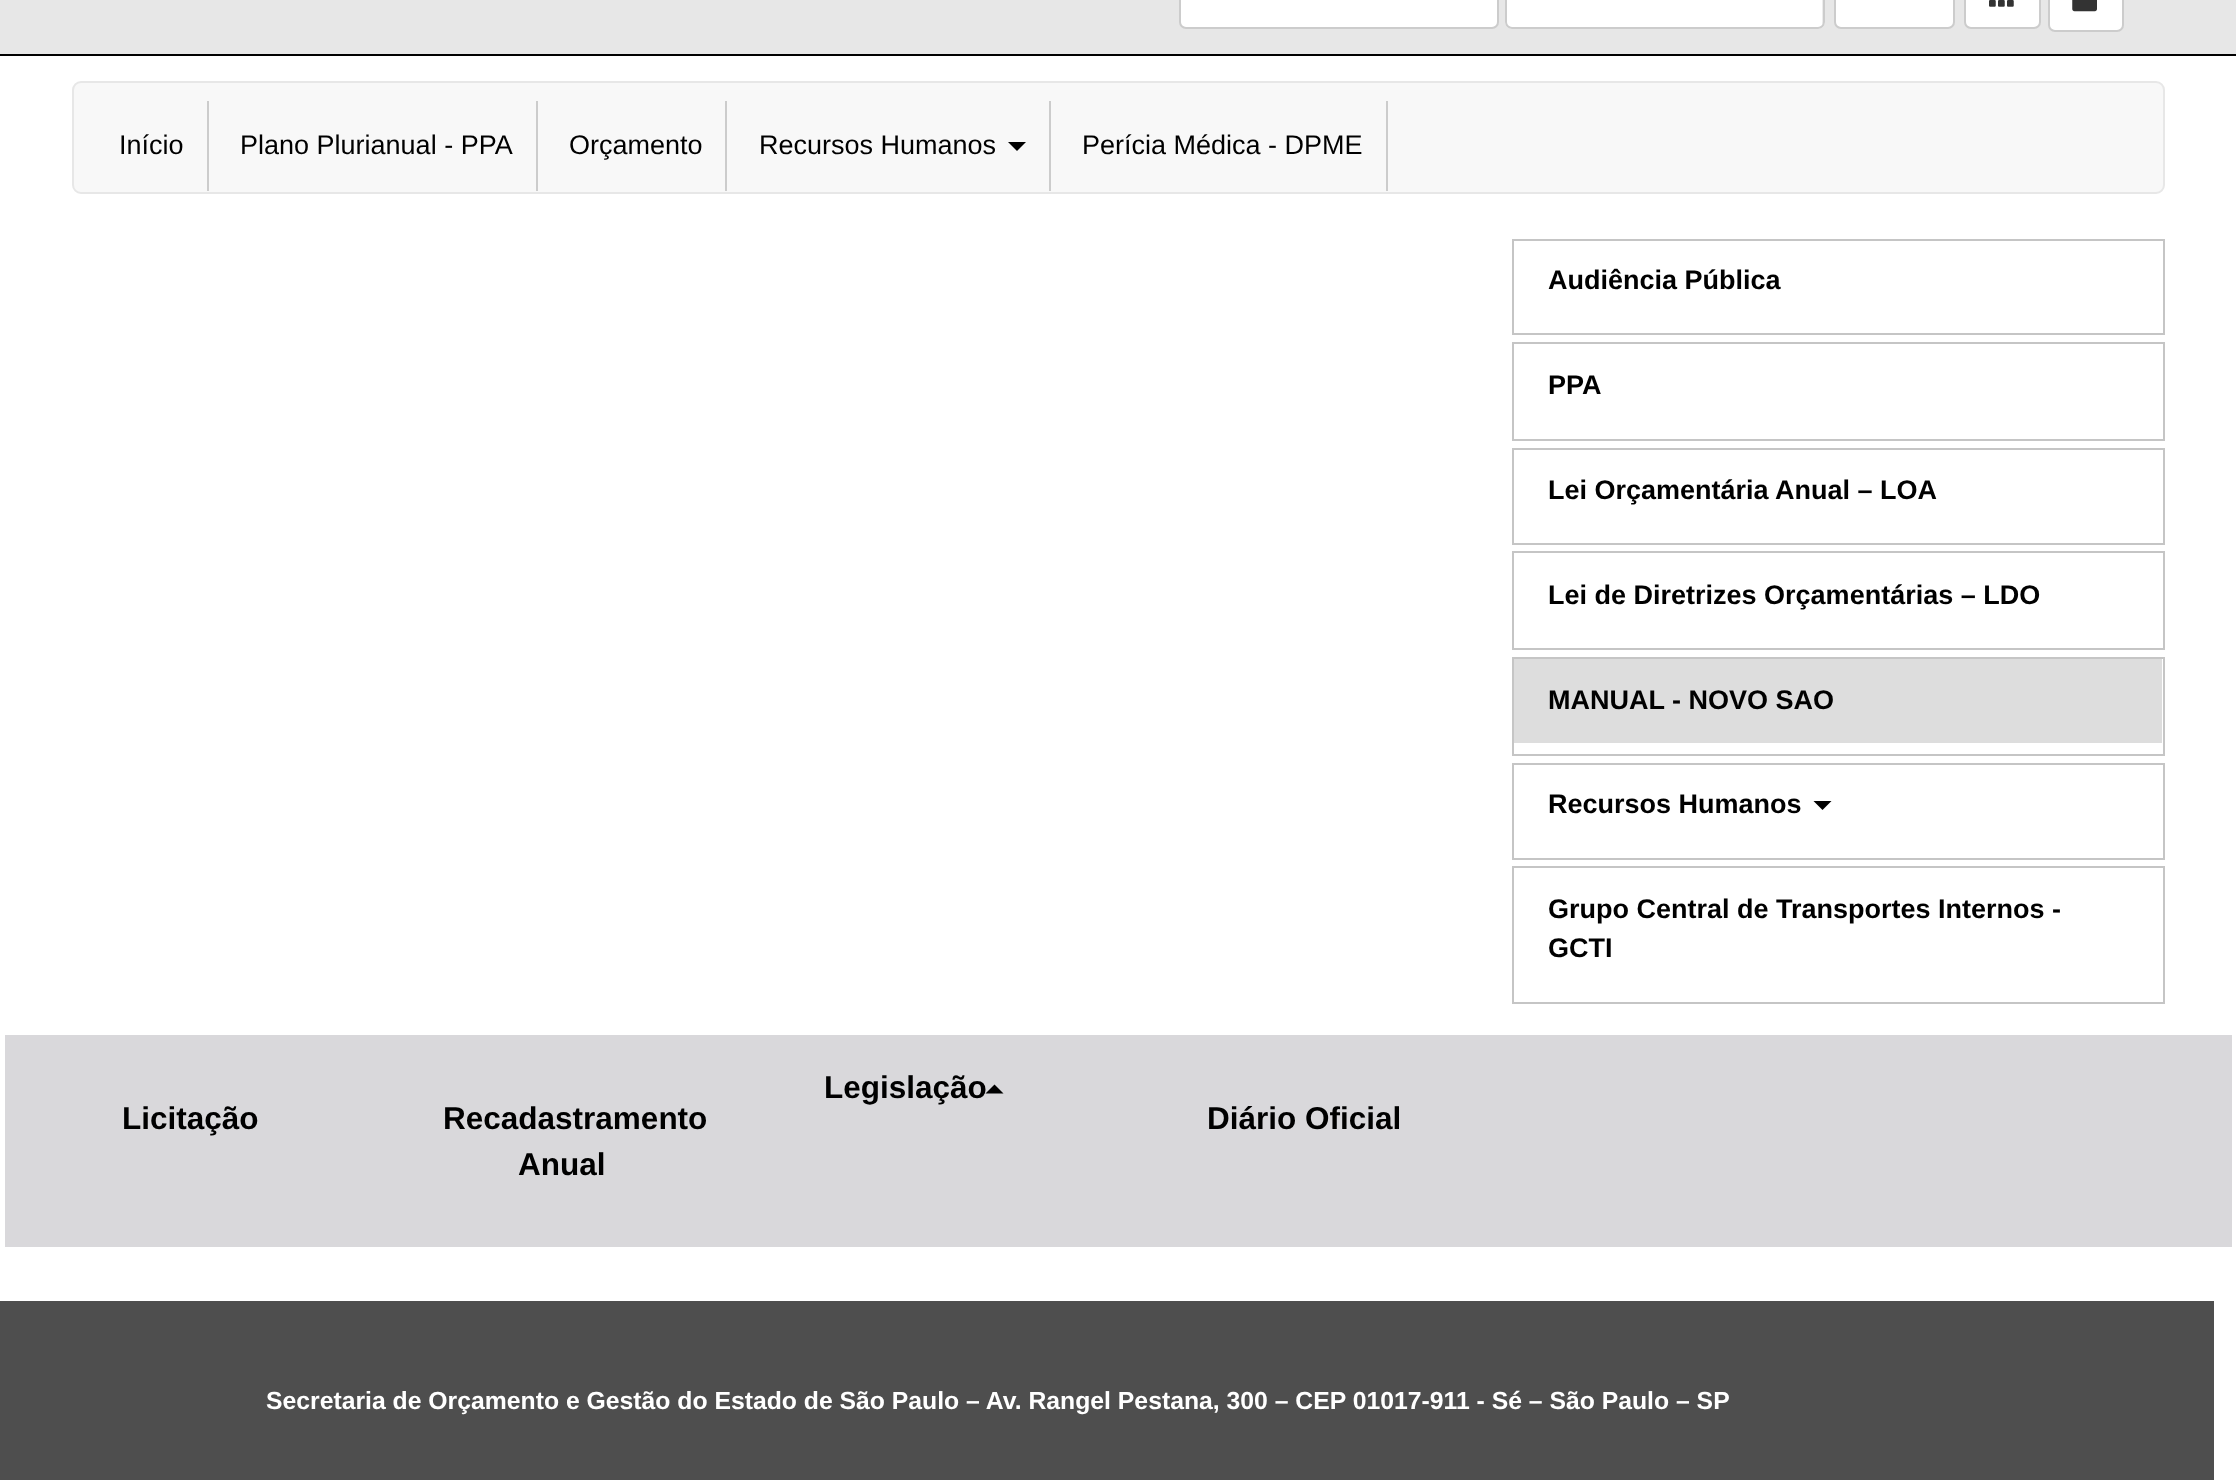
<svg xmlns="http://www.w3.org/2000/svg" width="2236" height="1480">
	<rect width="100%" height="100%" fill="#FFFFFF" />
	<rect x="0" y="0" width="2236" height="54" fill="#E7E7E7" />
	<rect x="0" y="54" width="2236" height="2" fill="#000000" />
	<rect x="1180" y="-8" width="318" height="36" rx="6" fill="#FFFFFF" stroke="#CCCCCC" stroke-width="2" />
	<rect x="1505" y="-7" width="320" height="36" rx="7" fill="#FFFFFF" />
	<path d="M1512-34H1818C1820-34 1822-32 1822-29V25C1823 24 1823 23 1823 22V-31C1823-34 1821-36 1818-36H1513C1510-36 1508-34 1508-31V-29C1508-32 1510-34 1512-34Z" fill="#ECECEC" />
	<rect x="1506" y="-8" width="318" height="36" rx="6" fill="none" stroke="#CCCCCC" stroke-width="2" />
	<rect x="1835" y="-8" width="119" height="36" rx="6" fill="#FFFFFF" stroke="#CCCCCC" stroke-width="2" />
	<rect x="1965" y="-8" width="75" height="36" rx="6" fill="#FFFFFF" stroke="#CCCCCC" stroke-width="2" />
	<image x="1989" y="0" width="25" height="7" href="assets/img1.png" />
	<rect x="2049" y="-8" width="74" height="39" rx="6" fill="#FFFFFF" stroke="#CCCCCC" stroke-width="2" />
	<image x="2072" y="0" width="25" height="12" href="assets/img2.png" />
	<rect x="73" y="82" width="2091" height="111" rx="8" fill="#F8F8F8" stroke="#E7E7E7" stroke-width="2" />
	<rect x="207" y="101" width="2" height="90" fill="#CCCCCC" />
	<text x="119" y="154" font-family="Liberation Sans" font-size="27" fill="#000000">Início</text>
	<rect x="536" y="101" width="2" height="90" fill="#CCCCCC" />
	<text x="240" y="154" font-family="Liberation Sans" font-size="27" fill="#000000">Plano Plurianual - PPA</text>
	<rect x="725" y="101" width="2" height="90" fill="#CCCCCC" />
	<text x="569" y="154" font-family="Liberation Sans" font-size="27" fill="#000000">Orçamento</text>
	<rect x="1049" y="101" width="2" height="90" fill="#CCCCCC" />
	<text x="759" y="154" font-family="Liberation Sans" font-size="27" fill="#000000">Recursos Humanos</text>
	<path d="M1008 142H1026L1017 151Z" fill="#000000" />
	<rect x="1386" y="101" width="2" height="90" fill="#CCCCCC" />
	<text x="1082" y="154" font-family="Liberation Sans" font-size="27" fill="#000000">Perícia Médica - DPME</text>
	<rect x="1513" y="240" width="651" height="94" fill="none" stroke="#C5C5C5" stroke-width="2" />
	<text x="1548" y="289" font-family="Liberation Sans" font-size="27" font-weight="700" fill="#000000">Audiência Pública</text>
	<rect x="1513" y="343" width="651" height="97" fill="none" stroke="#C5C5C5" stroke-width="2" />
	<text x="1548" y="394" font-family="Liberation Sans" font-size="27" font-weight="700" fill="#000000">PPA</text>
	<rect x="1513" y="449" width="651" height="95" fill="none" stroke="#C5C5C5" stroke-width="2" />
	<text x="1548" y="499" font-family="Liberation Sans" font-size="27" font-weight="700" fill="#000000">Lei Orçamentária Anual – LOA</text>
	<rect x="1513" y="552" width="651" height="97" fill="none" stroke="#C5C5C5" stroke-width="2" />
	<text x="1548" y="604" font-family="Liberation Sans" font-size="27" font-weight="700" fill="#000000">Lei de Diretrizes Orçamentárias – LDO</text>
	<rect x="1513" y="658" width="651" height="97" fill="none" stroke="#C5C5C5" stroke-width="2" />
	<rect x="1514" y="659" width="648" height="84" fill="#DDDDDD" />
	<text x="1548" y="709" font-family="Liberation Sans" font-size="27" font-weight="700" fill="#000000">MANUAL - NOVO SAO</text>
	<rect x="1513" y="764" width="651" height="95" fill="none" stroke="#C5C5C5" stroke-width="2" />
	<text x="1548" y="813" font-family="Liberation Sans" font-size="27" font-weight="700" fill="#000000">Recursos Humanos</text>
	<path d="M1813.5 801H1831.5L1822.5 810Z" fill="#000000" />
	<rect x="1513" y="867" width="651" height="136" fill="none" stroke="#C5C5C5" stroke-width="2" />
	<g font-family="Liberation Sans" font-size="27" font-weight="700" fill="#000000">
		<text x="1548" y="918">Grupo Central de Transportes Internos -</text>
		<text x="1548" y="957">GCTI</text>
	</g>
	<rect x="5" y="1035" width="2227" height="212" fill="#D9D8DB" />
	<text x="824" y="1098" font-family="Liberation Sans" font-size="31.5" font-weight="700" fill="#000000">Legislação</text>
	<path d="M1003.5 1093.5H985.5L994.5 1084.5Z" fill="#000000" />
	<g font-family="Liberation Sans" font-size="31.5" font-weight="700" fill="#000000">
		<text x="122" y="1129">Licitação</text>
		<text x="443" y="1129">Recadastramento</text>
		<text x="518" y="1175">Anual</text>
		<text x="1207" y="1129">Diário Oficial</text>
	</g>
	<rect x="0" y="1301" width="2214" height="179" fill="#4E4E4E" />
	<text x="266" y="1409" font-family="Liberation Sans" font-size="24.75" font-weight="700" fill="#FFFFFF">Secretaria de Orçamento e Gestão do Estado de São Paulo – Av. Rangel Pestana, 300 – CEP 01017-911 - Sé – São Paulo – SP</text>
</svg>
